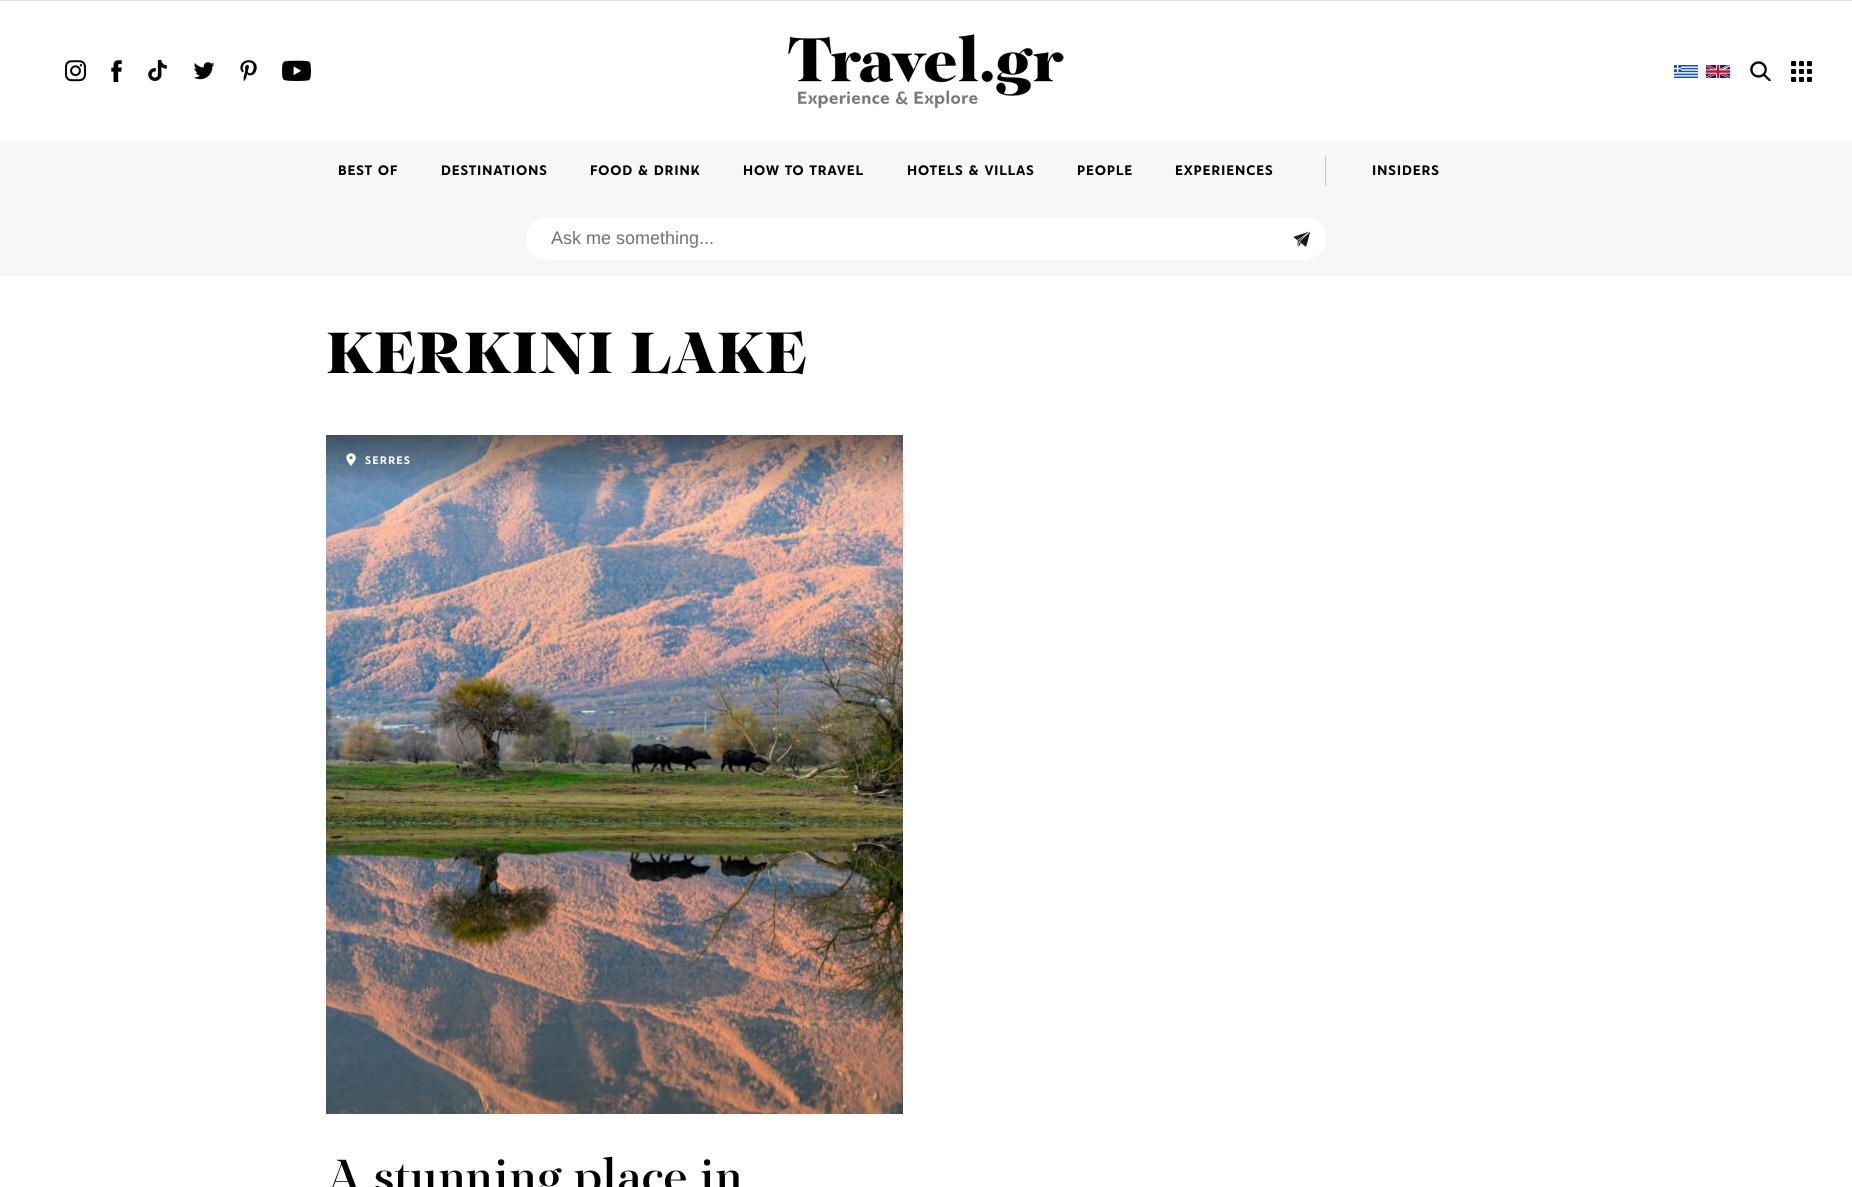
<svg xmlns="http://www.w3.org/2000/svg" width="1852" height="1187">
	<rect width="100%" height="100%" fill="#FFFFFF" />
	<rect x="0" y="0" width="1852" height="1" fill="#DCDCDC" />
	<image x="65" y="60" width="21" height="22" href="assets/img1.png" />
	<image x="111" y="60" width="11" height="22" href="assets/img2.png" />
	<image x="148" y="60" width="19" height="21" href="assets/img3.png" />
	<image x="193" y="62" width="22" height="18" href="assets/img4.png" />
	<image x="240" y="60" width="17" height="22" href="assets/img5.png" />
	<image x="282" y="60" width="29" height="21" href="assets/img6.png" />
	<image x="788" y="34" width="276" height="74" href="assets/img7.png" />
	<rect x="1698" y="65" width="8" height="13" fill="#F7F7F7" />
	<image x="1674" y="65" width="24" height="13" href="assets/img8.png" />
	<image x="1706" y="65" width="24" height="13" href="assets/img9.png" />
	<image x="1750" y="61" width="21" height="20" href="assets/img10.png" />
	<image x="1791" y="61" width="21" height="21" href="assets/img11.png" />
	<rect x="0" y="141" width="1852" height="135" fill="#F7F7F7" />
	<image x="338" y="165" width="60" height="11" href="assets/img12.png" />
	<image x="441" y="165" width="106" height="11" href="assets/img13.png" />
	<image x="590" y="165" width="110" height="11" href="assets/img14.png" />
	<image x="743" y="165" width="120" height="11" href="assets/img15.png" />
	<image x="907" y="165" width="127" height="11" href="assets/img16.png" />
	<image x="1077" y="165" width="55" height="11" href="assets/img17.png" />
	<image x="1175" y="165" width="98" height="11" href="assets/img18.png" />
	<rect x="1325" y="156" width="1" height="30" fill="#C1C1C1" />
	<image x="1373" y="165" width="66" height="11" href="assets/img19.png" />
	<rect x="526" y="217" width="800" height="43" rx="21.5" fill="#FFFFFF" />
	<text x="551" y="244" font-family="Liberation Sans" font-size="18" fill="#757575">Ask me something...</text>
	<image x="1293" y="231" width="18" height="16" href="assets/img20.png" />
	<text x="326" y="373" font-family="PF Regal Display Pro" font-size="60" font-weight="900" fill="#000000">KERKINI LAKE</text>
	<image x="326" y="435" width="577" height="679" href="assets/img21.png" />
	<image x="346" y="453" width="10" height="13" href="assets/img22.png" />
	<image x="365" y="456" width="45" height="9" href="assets/img23.png" />
	<text x="326" y="1192" font-family="PF Regal Display Pro" font-size="48" font-weight="500" fill="#000000">A stunning place in</text>
</svg>
